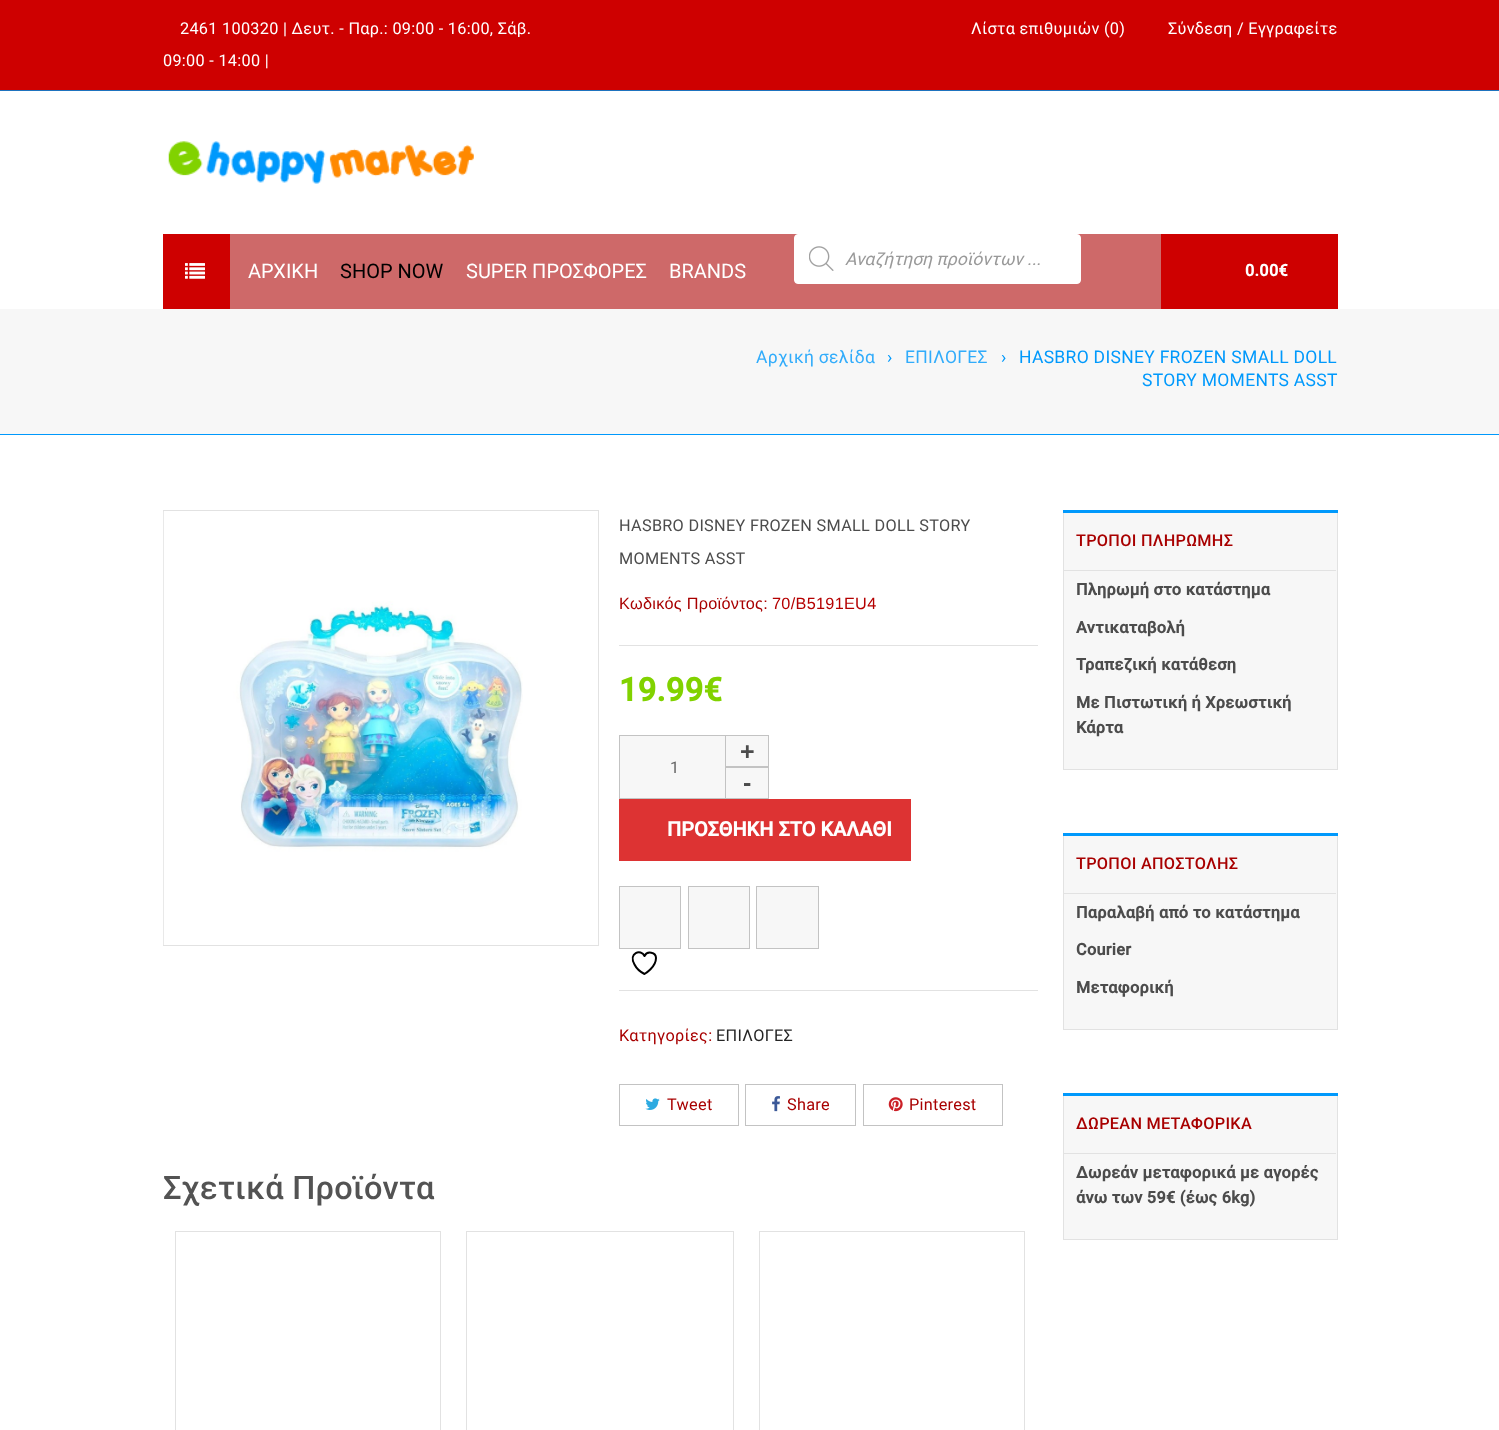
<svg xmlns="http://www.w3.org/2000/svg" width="1499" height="1430">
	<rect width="100%" height="100%" fill="#FFFFFF" />
	<rect x="0" y="0" width="1499" height="90" fill="#CE0000" />
	<rect x="0" y="90" width="1499" height="1" fill="#1E73BE" />
	<g font-family="Roboto" font-size="16.25" letter-spacing="0.3" fill="#FFFFFF">
		<text x="180" y="34">2461 100320 | Δευτ. - Παρ.: 09:00 - 16:00, Σάβ.</text>
		<text x="163" y="66">09:00 - 14:00 |</text>
		<text x="971" y="34">Λίστα επιθυμιών (0)</text>
		<text x="1168" y="34">Σύνδεση</text>
		<text x="1237" y="34">/ Εγγραφείτε</text>
	</g>
	<image x="168" y="141" width="306" height="43" href="assets/img1.png" />
	<rect x="230" y="234" width="931" height="75" fill="#CE6969" />
	<rect x="163" y="234" width="67" height="75" fill="#CE0000" />
	<image x="185" y="263" width="20" height="16" href="assets/img2.png" />
	<rect x="794.5" y="234.5" width="286" height="49" rx="3.5" fill="#FFFFFF" stroke="#FFFFFF" />
	<image x="809" y="246" width="25" height="25" href="assets/img3.png" />
	<text x="845" y="265" font-family="Roboto" font-size="17.5" font-style="italic" fill="#999999">Αναζήτηση προϊόντων ...</text>
	<text x="248" y="278" font-family="Roboto" font-size="20" fill="#FFFFFF">ΑΡΧΙΚΗ</text>
	<text x="340" y="278" font-family="Roboto" font-size="20" fill="#000000">SHOP NOW</text>
	<g font-family="Roboto" font-size="20" fill="#FFFFFF">
		<text x="466" y="278">SUPER ΠΡΟΣΦΟΡΕΣ</text>
		<text x="669" y="278">BRANDS</text>
	</g>
	<rect x="1161" y="234" width="177" height="75" fill="#CE0000" />
	<text x="1245" y="276" font-family="Roboto" font-size="16.25" font-weight="700" letter-spacing="0.3" fill="#FFFFFF">0.00€</text>
	<rect x="0" y="309" width="1499" height="125" fill="#F7F7F7" />
	<rect x="0" y="434" width="1499" height="1" fill="#0099FC" />
	<text x="756" y="363" font-family="Roboto" font-size="17.5" letter-spacing="0.3" fill="#31ACFB">Αρχική σελίδα</text>
	<text x="887" y="363" font-family="Roboto" font-size="17.5" letter-spacing="0.3" fill="#0099FC">›</text>
	<text x="905" y="363" font-family="Roboto" font-size="17.5" letter-spacing="0.3" fill="#31ACFB">ΕΠΙΛΟΓΕΣ</text>
	<g font-family="Roboto" font-size="17.5" letter-spacing="0.3" fill="#0099FC">
		<text x="1001" y="363">›</text>
		<text x="1019" y="363">HASBRO DISNEY FROZEN SMALL DOLL</text>
		<text x="1142" y="386">STORY MOMENTS ASST</text>
	</g>
	<rect x="163.5" y="510.5" width="435" height="435" fill="none" stroke="#E2E2E2" />
	<image x="163" y="511" width="360" height="434" href="assets/img4.png" />
	<g font-family="Roboto" font-size="16.25" letter-spacing="0.3" fill="#4C4C4C">
		<text x="619" y="531">HASBRO DISNEY FROZEN SMALL DOLL STORY</text>
		<text x="619" y="564">MOMENTS ASST</text>
	</g>
	<text x="619" y="609" font-family="Liberation Sans" font-size="16.25" letter-spacing="0.3" fill="#A80000">Κωδικός Προϊόντος:</text>
	<text x="772" y="609" font-family="Liberation Sans" font-size="16.25" letter-spacing="0.3" fill="#B50000">70/B5191EU4</text>
	<rect x="619" y="645" width="419" height="1" fill="#E2E2E2" />
	<text x="619" y="701" font-family="Roboto" font-size="32.5" font-weight="700" letter-spacing="0.3" fill="#81D200">19.99€</text>
	<rect x="619.5" y="735.5" width="149" height="63" fill="#F7F7F7" stroke="#C3C3C3" />
	<rect x="725.5" y="766.5" width="43" height="32" fill="none" stroke="#C3C3C3" />
	<rect x="725.5" y="735.5" width="43" height="32" fill="none" stroke="#C3C3C3" />
	<text x="740" y="760" font-family="Liberation Sans" font-size="25" font-weight="700" fill="#4C4C4C">+</text>
	<text x="670" y="773" font-family="Roboto" font-size="16.25" fill="#666666">1</text>
	<text x="743" y="791" font-family="Liberation Sans" font-size="25" font-weight="700" fill="#4C4C4C">-</text>
	<rect x="619" y="799" width="292" height="62" fill="#DD3333" />
	<text x="667" y="836" font-family="Roboto" font-size="20" font-weight="700" fill="#FFFFFF">ΠΡΟΣΘΗΚΗ ΣΤΟ ΚΑΛΑΘΙ</text>
	<rect x="619.5" y="886.5" width="61" height="62" fill="#F7F7F7" stroke="#C3C3C3" />
	<path d="M656 958C656 952 647 950.5 644.5 956C641 948.5 628 953 634.5 964.5C636.5 968.5 640.5 972 644.5 974C644.5 974 656 967.5 656 958Z" fill="none" stroke="#000000" stroke-width="2" stroke-linecap="round" stroke-linejoin="round" />
	<rect x="688.5" y="886.5" width="61" height="62" fill="#F7F7F7" stroke="#C3C3C3" />
	<rect x="756.5" y="886.5" width="62" height="62" fill="#F7F7F7" stroke="#C3C3C3" />
	<rect x="619" y="990" width="419" height="1" fill="#E2E2E2" />
	<text x="619" y="1041" font-family="Roboto" font-size="16.25" letter-spacing="0.3" fill="#A80000">Κατηγορίες:</text>
	<text x="716" y="1041" font-family="Roboto" font-size="16.25" letter-spacing="0.3" fill="#252525">ΕΠΙΛΟΓΕΣ</text>
	<rect x="619.5" y="1084.5" width="119" height="41" fill="none" stroke="#C3C3C3" />
	<image x="645" y="1098" width="15" height="12" href="assets/img5.png" />
	<text x="667" y="1110" font-family="Roboto" font-size="16.25" letter-spacing="0.3" fill="#A80000">Tweet</text>
	<rect x="745.5" y="1084.5" width="110" height="41" fill="none" stroke="#C3C3C3" />
	<image x="772" y="1096" width="8" height="16" href="assets/img6.png" />
	<text x="787" y="1110" font-family="Roboto" font-size="16.25" letter-spacing="0.3" fill="#A80000">Share</text>
	<rect x="863.5" y="1084.5" width="139" height="41" fill="none" stroke="#C3C3C3" />
	<image x="888" y="1097" width="15" height="15" href="assets/img7.png" />
	<text x="909" y="1110" font-family="Roboto" font-size="16.25" letter-spacing="0.3" fill="#A80000">Pinterest</text>
	<text x="163" y="1199" font-family="Roboto" font-size="32.5" font-weight="500" letter-spacing="0.3" fill="#535353">Σχετικά Προϊόντα</text>
	<rect x="175.5" y="1231.5" width="265" height="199" fill="none" stroke="#E2E2E2" />
	<rect x="466.5" y="1231.5" width="267" height="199" fill="none" stroke="#E2E2E2" />
	<rect x="759.5" y="1231.5" width="265" height="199" fill="none" stroke="#E2E2E2" />
	<rect x="1064" y="513" width="273" height="256" fill="#F7F7F7" />
	<rect x="1063.5" y="510.5" width="274" height="259" fill="none" stroke="#E2E2E2" />
	<rect x="1063" y="510" width="275" height="3" fill="#0099FC" />
	<text x="1076" y="546" font-family="Roboto" font-size="16.25" font-weight="500" letter-spacing="0.3" fill="#A80000">ΤΡΟΠΟΙ ΠΛΗΡΩΜΗΣ</text>
	<rect x="1064" y="570" width="272" height="1" fill="#E2E2E2" />
	<g font-family="Roboto" font-size="16.25" font-weight="700" letter-spacing="0.3" fill="#4C4C4C">
		<text x="1076" y="595">Πληρωμή στο κατάστημα</text>
		<text x="1076" y="633">Αντικαταβολή</text>
		<text x="1076" y="670">Τραπεζική κατάθεση</text>
		<text x="1076" y="708">Με Πιστωτική ή Χρεωστική</text>
		<text x="1076" y="733">Κάρτα</text>
	</g>
	<rect x="1064" y="836" width="273" height="193" fill="#F7F7F7" />
	<rect x="1063.5" y="833.5" width="274" height="196" fill="none" stroke="#E2E2E2" />
	<rect x="1063" y="833" width="275" height="3" fill="#0099FC" />
	<text x="1076" y="869" font-family="Roboto" font-size="16.25" font-weight="500" letter-spacing="0.3" fill="#A80000">ΤΡΟΠΟΙ ΑΠΟΣΤΟΛΗΣ</text>
	<rect x="1064" y="893" width="272" height="1" fill="#E2E2E2" />
	<g font-family="Roboto" font-size="16.25" font-weight="700" letter-spacing="0.3" fill="#4C4C4C">
		<text x="1076" y="918">Παραλαβή από το κατάστημα</text>
		<text x="1076" y="955">Courier</text>
		<text x="1076" y="993">Μεταφορική</text>
	</g>
	<rect x="1064" y="1096" width="273" height="143" fill="#F7F7F7" />
	<rect x="1063.5" y="1093.5" width="274" height="146" fill="none" stroke="#E2E2E2" />
	<rect x="1063" y="1093" width="275" height="3" fill="#0099FC" />
	<text x="1076" y="1129" font-family="Roboto" font-size="16.25" font-weight="500" letter-spacing="0.3" fill="#A80000">ΔΩΡΕΑΝ ΜΕΤΑΦΟΡΙΚΑ</text>
	<rect x="1064" y="1153" width="272" height="1" fill="#E2E2E2" />
	<g font-family="Roboto" font-size="16.25" font-weight="700" letter-spacing="0.3" fill="#4C4C4C">
		<text x="1076" y="1178">Δωρεάν μεταφορικά με αγορές</text>
		<text x="1076" y="1203">άνω των 59€ (έως 6kg)</text>
	</g>
</svg>
